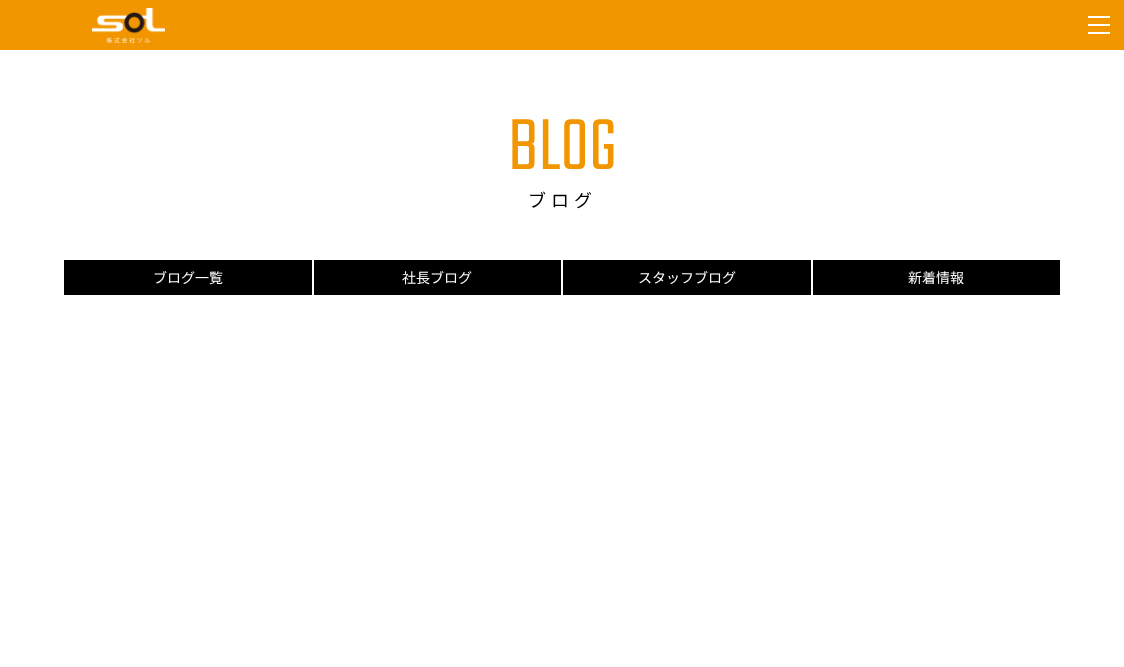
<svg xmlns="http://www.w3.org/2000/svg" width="1124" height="667">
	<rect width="100%" height="100%" fill="#FFFFFF" />
	<rect x="0" y="0" width="1124" height="50" fill="#F29600" />
	<image x="92" y="8" width="73" height="35" href="assets/img1.png" />
	<rect x="1088" y="24" width="22" height="2" fill="#FFFFFF" />
	<rect x="1088" y="16" width="22" height="2" fill="#FFFFFF" />
	<rect x="1088" y="32" width="22" height="2" fill="#FFFFFF" />
	<text x="508" y="169" font-family="Teko" font-size="80" font-weight="300" fill="#F29600">BLOG</text>
	<text x="528" y="207" font-family="Noto Sans JP" font-size="18" letter-spacing="5" fill="#000000">ブログ</text>
	<rect x="64" y="260" width="248" height="35" fill="#000000" />
	<text x="153" y="283" font-family="Noto Sans JP" font-size="14" fill="#FFFFFF">ブログ一覧</text>
	<rect x="314" y="260" width="247" height="35" fill="#000000" />
	<text x="402" y="283" font-family="Noto Sans JP" font-size="14" fill="#FFFFFF">社長ブログ</text>
	<rect x="563" y="260" width="248" height="35" fill="#000000" />
	<text x="638" y="283" font-family="Noto Sans JP" font-size="14" fill="#FFFFFF">スタッフブログ</text>
	<rect x="813" y="260" width="247" height="35" fill="#000000" />
	<text x="908" y="283" font-family="Noto Sans JP" font-size="14" fill="#FFFFFF">新着情報</text>
</svg>
